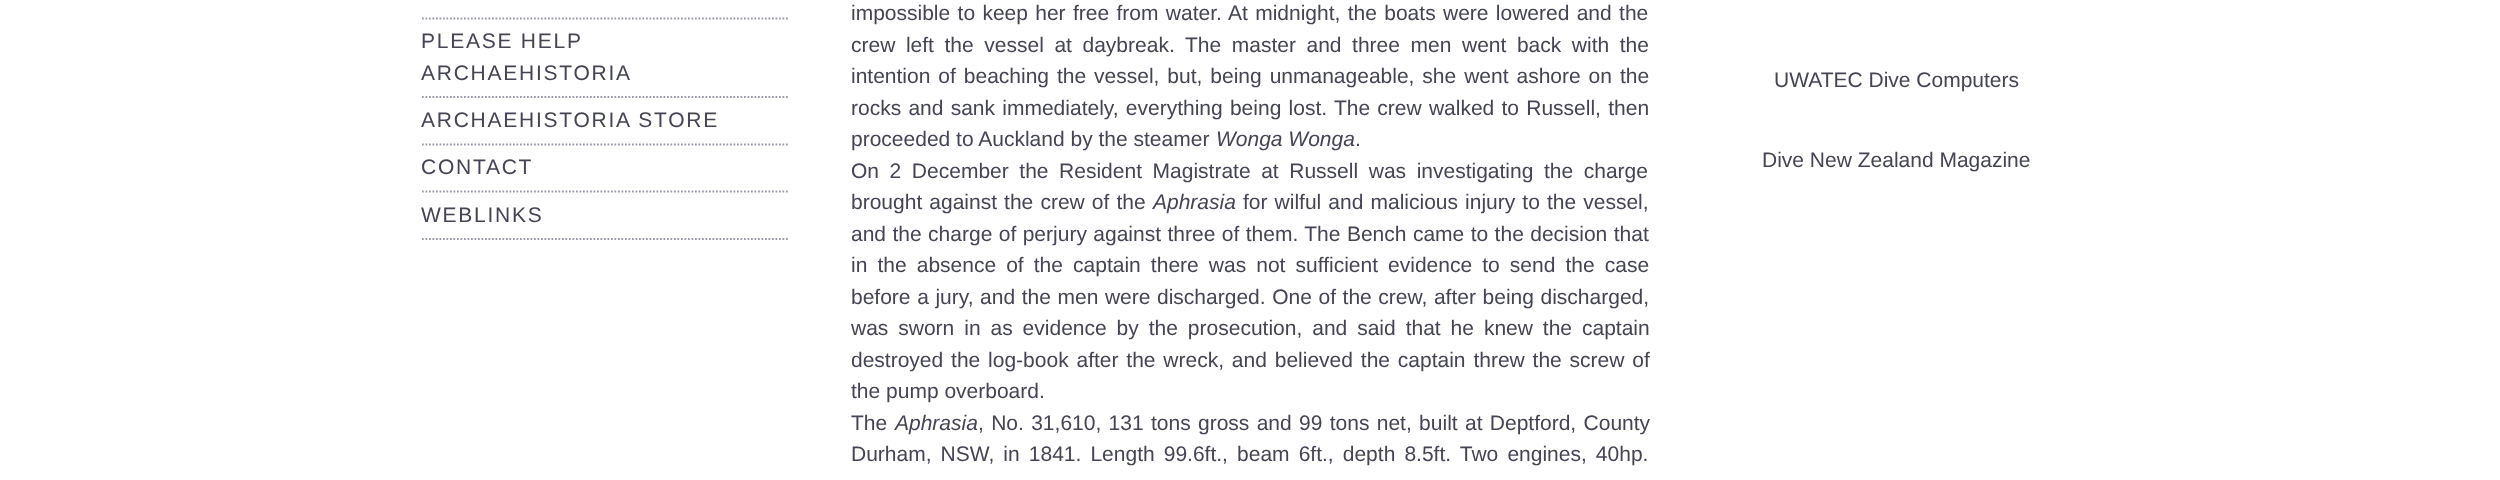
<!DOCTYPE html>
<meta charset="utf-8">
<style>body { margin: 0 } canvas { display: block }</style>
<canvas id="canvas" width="2500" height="480"></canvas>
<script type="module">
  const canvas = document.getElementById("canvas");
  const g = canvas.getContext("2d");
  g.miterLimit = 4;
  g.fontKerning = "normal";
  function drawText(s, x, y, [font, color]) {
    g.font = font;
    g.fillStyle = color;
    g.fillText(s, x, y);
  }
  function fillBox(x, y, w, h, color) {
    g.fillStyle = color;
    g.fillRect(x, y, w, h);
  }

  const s1 = ["21px Liberation Sans", "#444455"];
  const s2 = ["italic 21px Liberation Sans", "#444455"];

  fillBox(0, 0, 2500, 480, "#FFFFFF");
  g.beginPath();
  g.moveTo(422, 18.5);
  g.lineTo(789, 18.5);
  g.strokeStyle = "#9999AA";
  g.lineWidth = 1.8;
  g.setLineDash([1.75, 1.75]);
  g.stroke();
  g.beginPath();
  g.moveTo(422, 97);
  g.lineTo(789, 97);
  g.stroke();
  g.letterSpacing = "1.75px";
  drawText("PLEASE HELP", 421, 48, s1);
  drawText("ARCHAEHISTORIA", 421, 80, s1);
  g.beginPath();
  g.moveTo(422, 144.5);
  g.lineTo(789, 144.5);
  g.stroke();
  drawText("ARCHAEHISTORIA STORE", 421, 127, s1);
  g.beginPath();
  g.moveTo(422, 191.5);
  g.lineTo(789, 191.5);
  g.stroke();
  drawText("CONTACT", 421, 174, s1);
  g.beginPath();
  g.moveTo(422, 239);
  g.lineTo(789, 239);
  g.stroke();
  drawText("WEBLINKS", 421, 222, s1);
  g.letterSpacing = "0px";
  g.wordSpacing = "1.5px";
  drawText("impossible to keep her free from water. At midnight, the boats were lowered and the", 851, 20, s1);
  g.wordSpacing = "4.75px";
  drawText("crew left the vessel at daybreak. The master and three men went back with the", 851, 52, s1);
  g.wordSpacing = "2.1px";
  drawText("intention of beaching the vessel, but, being unmanageable, she went ashore on the", 851, 83, s1);
  g.wordSpacing = "1.4px";
  drawText("rocks and sank immediately, everything being lost. The crew walked to Russell, then", 851, 115, s1);
  g.wordSpacing = "0px";
  drawText("proceeded to Auckland by the steamer", 851, 146, s1);
  drawText("Wonga Wonga", 1216, 146, s2);
  drawText(".", 1355, 146, s1);
  g.wordSpacing = "4.75px";
  drawText("On 2 December the Resident Magistrate at Russell was investigating the charge", 851, 178, s1);
  g.wordSpacing = "1.25px";
  drawText("brought against the crew of the", 851, 209, s1);
  g.wordSpacing = "0px";
  drawText("Aphrasia", 1153, 209, s2);
  g.wordSpacing = "1.25px";
  drawText("for wilful and malicious injury to the vessel,", 1243, 209, s1);
  g.wordSpacing = "0.6px";
  drawText("and the charge of perjury against three of them. The Bench came to the decision that", 851, 241, s1);
  g.wordSpacing = "4.25px";
  drawText("in the absence of the captain there was not sufficient evidence to send the case", 851, 272, s1);
  g.wordSpacing = "0.75px";
  drawText("before a jury, and the men were discharged. One of the crew, after being discharged,", 851, 304, s1);
  g.wordSpacing = "4.1px";
  drawText("was sworn in as evidence by the prosecution, and said that he knew the captain", 851, 335, s1);
  g.wordSpacing = "2px";
  drawText("destroyed the log-book after the wreck, and believed the captain threw the screw of", 851, 367, s1);
  g.wordSpacing = "0px";
  drawText("the pump overboard.", 851, 398, s1);
  drawText("The", 851, 430, s1);
  drawText("Aphrasia", 895, 430, s2);
  g.wordSpacing = "1.5px";
  drawText(", No. 31,610, 131 tons gross and 99 tons net, built at Deptford, County", 978, 430, s1);
  g.wordSpacing = "3.25px";
  drawText("Durham, NSW, in 1841. Length 99.6ft., beam 6ft., depth 8.5ft. Two engines, 40hp.", 851, 461, s1);
  g.wordSpacing = "0px";
  drawText("UWATEC Dive Computers", 1774, 87, s1);
  drawText("Dive New Zealand Magazine", 1762, 167, s1);
</script>
